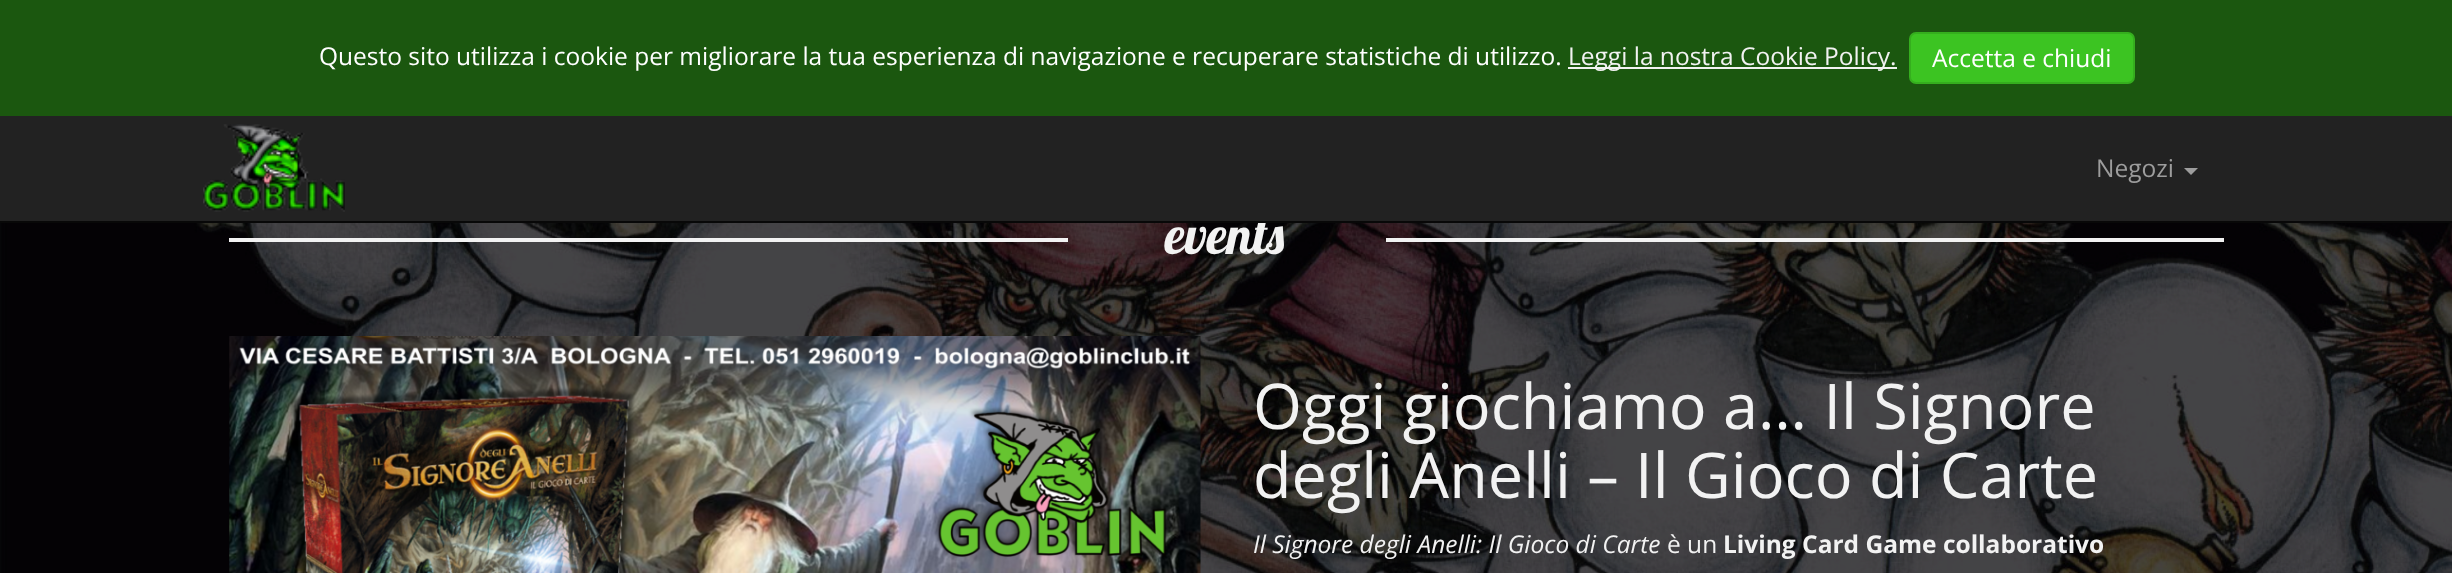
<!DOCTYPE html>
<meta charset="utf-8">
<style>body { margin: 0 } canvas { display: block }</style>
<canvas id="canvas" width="2452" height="573"></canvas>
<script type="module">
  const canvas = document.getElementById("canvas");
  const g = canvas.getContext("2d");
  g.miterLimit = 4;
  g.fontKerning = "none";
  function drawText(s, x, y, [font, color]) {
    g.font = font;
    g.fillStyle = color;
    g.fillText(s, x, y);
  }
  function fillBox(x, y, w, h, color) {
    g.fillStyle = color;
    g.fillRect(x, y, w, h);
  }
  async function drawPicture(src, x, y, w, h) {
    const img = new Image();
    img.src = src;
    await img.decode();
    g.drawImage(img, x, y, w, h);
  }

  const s1 = ["52.5px Lobster", "#F2F2F2"];
  const s2 = ["24.5px Open Sans", "#FFFFFF"];
  const s3 = ["24.5px Open Sans", "#F2F2F2"];
  const s4 = ["24.5px Open Sans", "#9D9D9D"];
  const s5 = ["63px Open Sans", "#F2F2F2"];
  const s6 = ["italic 24.5px Open Sans", "#F2F2F2"];
  const s7 = ["bold 24.5px Open Sans", "#F2F2F2"];

  fillBox(0, 0, 2452, 573, "#FFFFFF");
  await drawPicture("pic2.png", 0, 223, 2452, 350);
  drawText("events", 1165, 254, s1);
  fillBox(0, 116, 2452, 105, "#222222");
  fillBox(0, 221, 2452, 2, "#080808");
  fillBox(0, 0, 2452, 116, "#1B570F");
  drawText("Questo sito utilizza i cookie per migliorare la tua esperienza di navigazione e recuperare statistiche di utilizzo.", 319, 65, s2);
  fillBox(1568, 67, 329, 2, "#F2F2F2");
  drawText("Leggi la nostra Cookie Policy.", 1568, 65, s3);
  g.fillStyle = "#3CC422";
  g.beginPath();
  g.roundRect(1910, 33, 224, 50, 6);
  g.fill();
  g.strokeStyle = "#35AE1E";
  g.lineWidth = 2;
  g.stroke();
  drawText("Accetta e chiudi", 1932, 67, s2);
  await drawPicture("pic1.png", 203, 124, 142, 88);
  drawText("Negozi", 2096, 177, s4);
  g.beginPath();
  g.moveTo(2184, 168);
  g.lineTo(2198, 168);
  g.lineTo(2191, 175);
  g.closePath();
  g.fill();
  fillBox(229, 238, 839, 4, "#F2F2F2");
  fillBox(1386, 238, 838, 4, "#F2F2F2");
  await drawPicture("pic3.png", 229, 336, 972, 237);
  drawText("Oggi giochiamo a… Il Signore", 1253, 429, s5);
  drawText("degli Anelli – Il Gioco di Carte", 1253, 498, s5);
  drawText("Il Signore degli Anelli: Il Gioco di Carte", 1253, 553, s6);
  drawText("è un", 1667, 553, s3);
  drawText("Living Card Game collaborativo", 1723, 553, s7);
</script>
